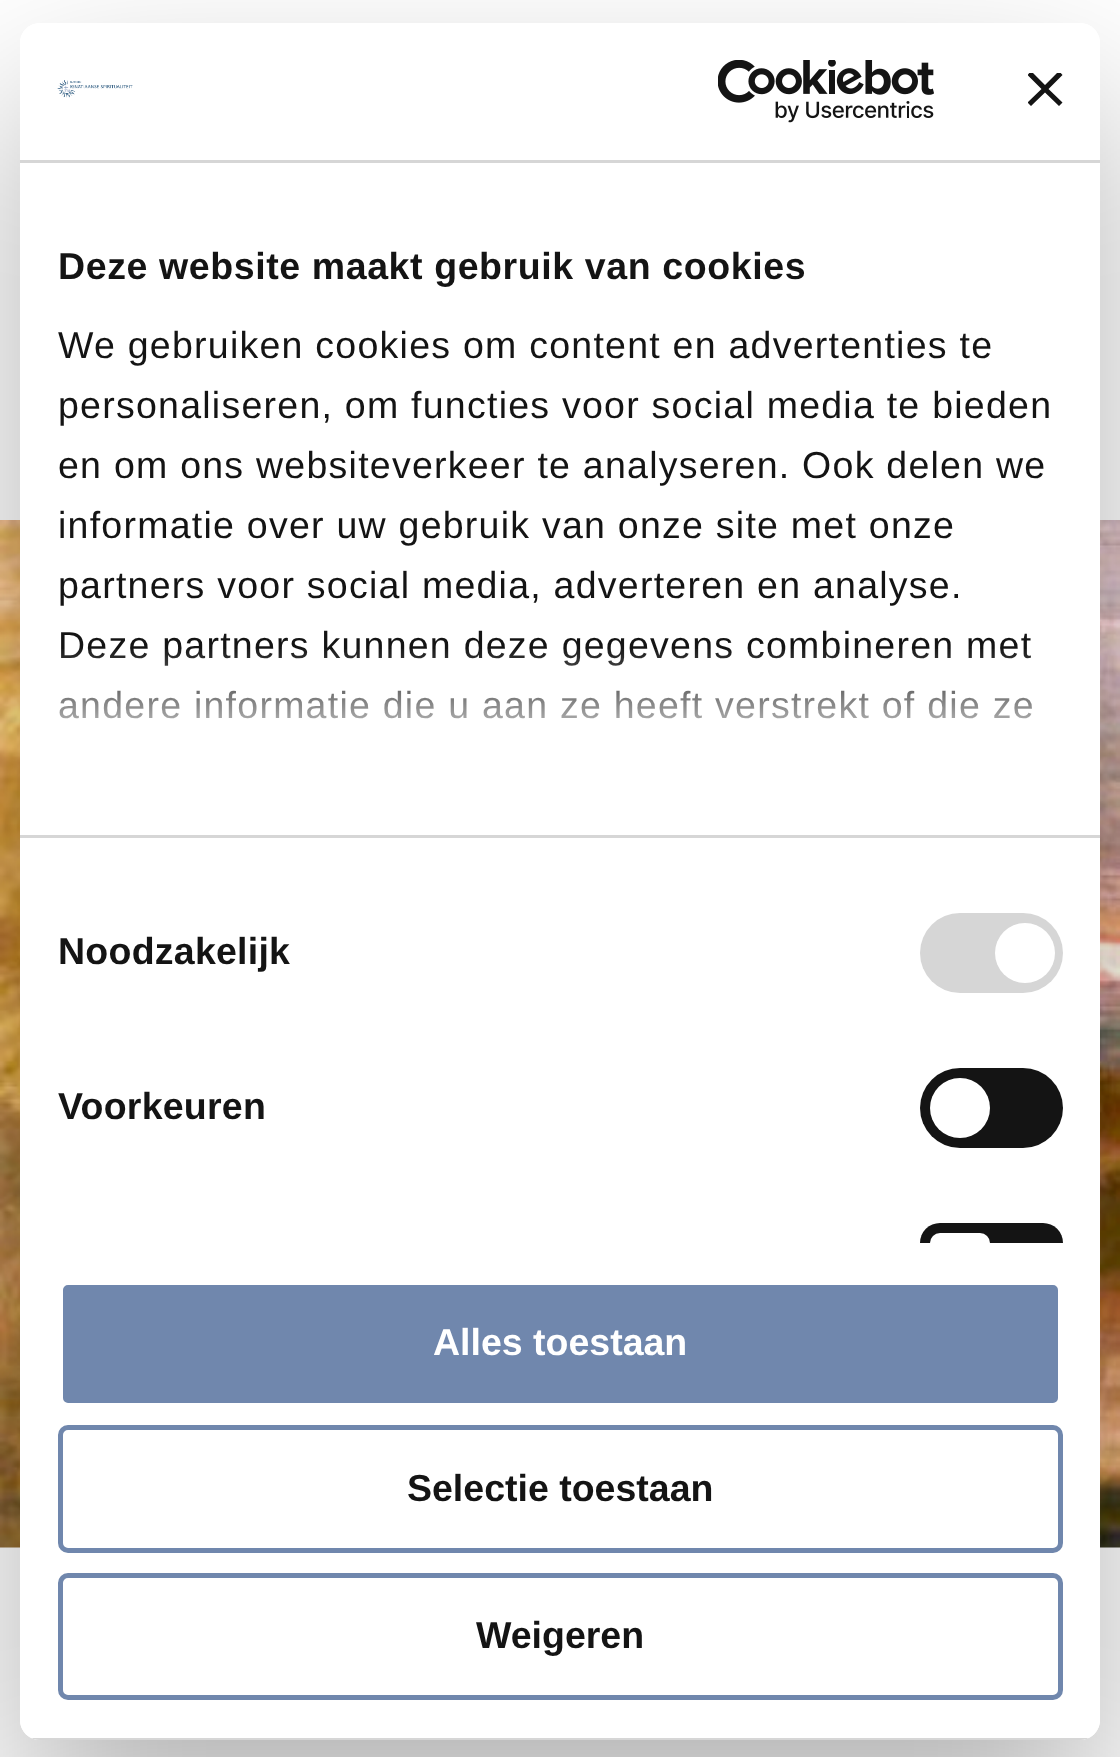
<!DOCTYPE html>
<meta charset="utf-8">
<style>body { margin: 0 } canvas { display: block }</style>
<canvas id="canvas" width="1120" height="1757"></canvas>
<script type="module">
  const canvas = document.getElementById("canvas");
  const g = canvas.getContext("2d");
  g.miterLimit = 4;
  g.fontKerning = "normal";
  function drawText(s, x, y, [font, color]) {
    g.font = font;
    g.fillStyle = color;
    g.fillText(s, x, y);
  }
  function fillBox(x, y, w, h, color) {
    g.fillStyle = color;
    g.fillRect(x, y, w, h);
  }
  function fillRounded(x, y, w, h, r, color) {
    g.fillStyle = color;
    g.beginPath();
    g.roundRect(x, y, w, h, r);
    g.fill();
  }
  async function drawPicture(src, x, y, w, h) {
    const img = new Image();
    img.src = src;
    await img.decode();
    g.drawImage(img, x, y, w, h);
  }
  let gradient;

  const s1 = ["bold 37.5px Liberation Sans", "#141414"];
  const s2 = ["37.5px Liberation Sans", "#141414"];
  const s3 = ["bold 37.5px Liberation Sans", "#FFFFFF"];

  fillBox(0, 0, 1120, 1757, "#FFFFFF");
  await drawPicture("pic3.png", 0, 520, 1120, 1028);
  g.save();
  g.beginPath();
  g.moveTo(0, 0);
  g.lineTo(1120, 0);
  g.lineTo(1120, 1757);
  g.lineTo(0, 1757);
  g.closePath();
  g.moveTo(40, 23);
  g.lineTo(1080, 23);
  g.bezierCurveTo(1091, 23, 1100, 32, 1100, 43);
  g.lineTo(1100, 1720);
  g.bezierCurveTo(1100, 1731, 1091, 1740, 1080, 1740);
  g.lineTo(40, 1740);
  g.bezierCurveTo(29, 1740, 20, 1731, 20, 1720);
  g.lineTo(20, 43);
  g.bezierCurveTo(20, 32, 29, 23, 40, 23);
  g.closePath();
  g.clip("evenodd");
  g.fillStyle = "rgba(0, 0, 0, 0.3)";
  g.filter = "blur(85px)";
  g.beginPath();
  g.roundRect(20, 103, 1080, 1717, 20);
  g.fill();
  g.filter = "none";
  g.restore();
  fillRounded(20, 23, 1080, 1717, 20, "#FFFFFF");
  fillBox(20, 160, 1080, 3, "#D6D6D6");
  await drawPicture("pic1.png", 57, 80, 76, 18);
  await drawPicture("pic2.png", 718, 60, 216, 63);
  g.save();
  g.beginPath();
  g.rect(1028, 73, 35, 35);
  g.clip();
  g.fillStyle = "#141414";
  g.beginPath();
  g.moveTo(1062.5, 75);
  g.lineTo(1059, 71);
  g.lineTo(1045, 85);
  g.lineTo(1031, 71);
  g.lineTo(1027.5, 75);
  g.lineTo(1041.5, 89);
  g.lineTo(1027.5, 102.5);
  g.lineTo(1031, 106);
  g.lineTo(1045, 92.5);
  g.lineTo(1059, 106);
  g.lineTo(1062.5, 102.5);
  g.lineTo(1048.5, 89);
  g.closePath();
  g.fill();
  g.restore();
  fillBox(20, 835, 1080, 3, "#D6D6D6");
  g.letterSpacing = "0.6px";
  drawText("Deze website maakt gebruik van cookies", 58, 279, s1);
  g.letterSpacing = "1.25px";
  drawText("We gebruiken cookies om content en advertenties te", 58, 358, s2);
  drawText("personaliseren, om functies voor social media te bieden", 58, 418, s2);
  drawText("en om ons websiteverkeer te analyseren. Ook delen we", 58, 478, s2);
  drawText("informatie over uw gebruik van onze site met onze", 58, 538, s2);
  drawText("partners voor social media, adverteren en analyse.", 58, 598, s2);
  drawText("Deze partners kunnen deze gegevens combineren met", 58, 658, s2);
  drawText("andere informatie die u aan ze heeft verstrekt of die ze", 58, 718, s2);
  gradient = g.createLinearGradient(544, 834, 544, 646);
  gradient.addColorStop(0, "#FFFFFF");
  gradient.addColorStop(0.5, "rgba(255, 255, 255, 0.8)");
  gradient.addColorStop(1, "rgba(255, 255, 255, 0)");
  g.fillStyle = gradient;
  g.fillRect(59, 649, 973, 70);
  g.letterSpacing = "0.25px";
  drawText("Noodzakelijk", 58, 964, s1);
  fillRounded(920, 913, 143, 80, 40, "#D6D6D6");
  g.fillStyle = "#FFFFFF";
  g.beginPath();
  g.arc(1025, 953, 30, 0, Math.PI * 2);
  g.fill();
  drawText("Voorkeuren", 58, 1119, s1);
  fillRounded(920, 1068, 143, 80, 40, "#141414");
  g.fillStyle = "#FFFFFF";
  g.beginPath();
  g.arc(960, 1108, 30, 0, Math.PI * 2);
  g.fill();
  g.fillStyle = "#141414";
  g.beginPath();
  g.roundRect(920, 1223, 143, 20, [40, 40, 0, 0]);
  g.fill();
  g.fillStyle = "#FFFFFF";
  g.beginPath();
  g.roundRect(930, 1233, 60, 10, [30, 30, 0, 0]);
  g.fill();
  g.save();
  g.beginPath();
  g.roundRect(20, 23, 1080, 1717, 20);
  g.clip();
  fillBox(31, 1738, 1058, 2, "#D6D6D6");
  g.restore();
  g.fillStyle = "#7087AD";
  g.beginPath();
  g.roundRect(60.5, 1282.5, 1000, 123, 7.5);
  g.fill();
  g.strokeStyle = "#FFFFFF";
  g.lineWidth = 5;
  g.stroke();
  g.letterSpacing = "0px";
  drawText("Alles toestaan", 433, 1355, s3);
  g.beginPath();
  g.roundRect(60.5, 1427.5, 1000, 123, 7.5);
  g.strokeStyle = "#7087AD";
  g.stroke();
  drawText("Selectie toestaan", 407, 1501, s1);
  g.beginPath();
  g.roundRect(60.5, 1575.5, 1000, 122, 7.5);
  g.stroke();
  drawText("Weigeren", 476, 1648, s1);
</script>
